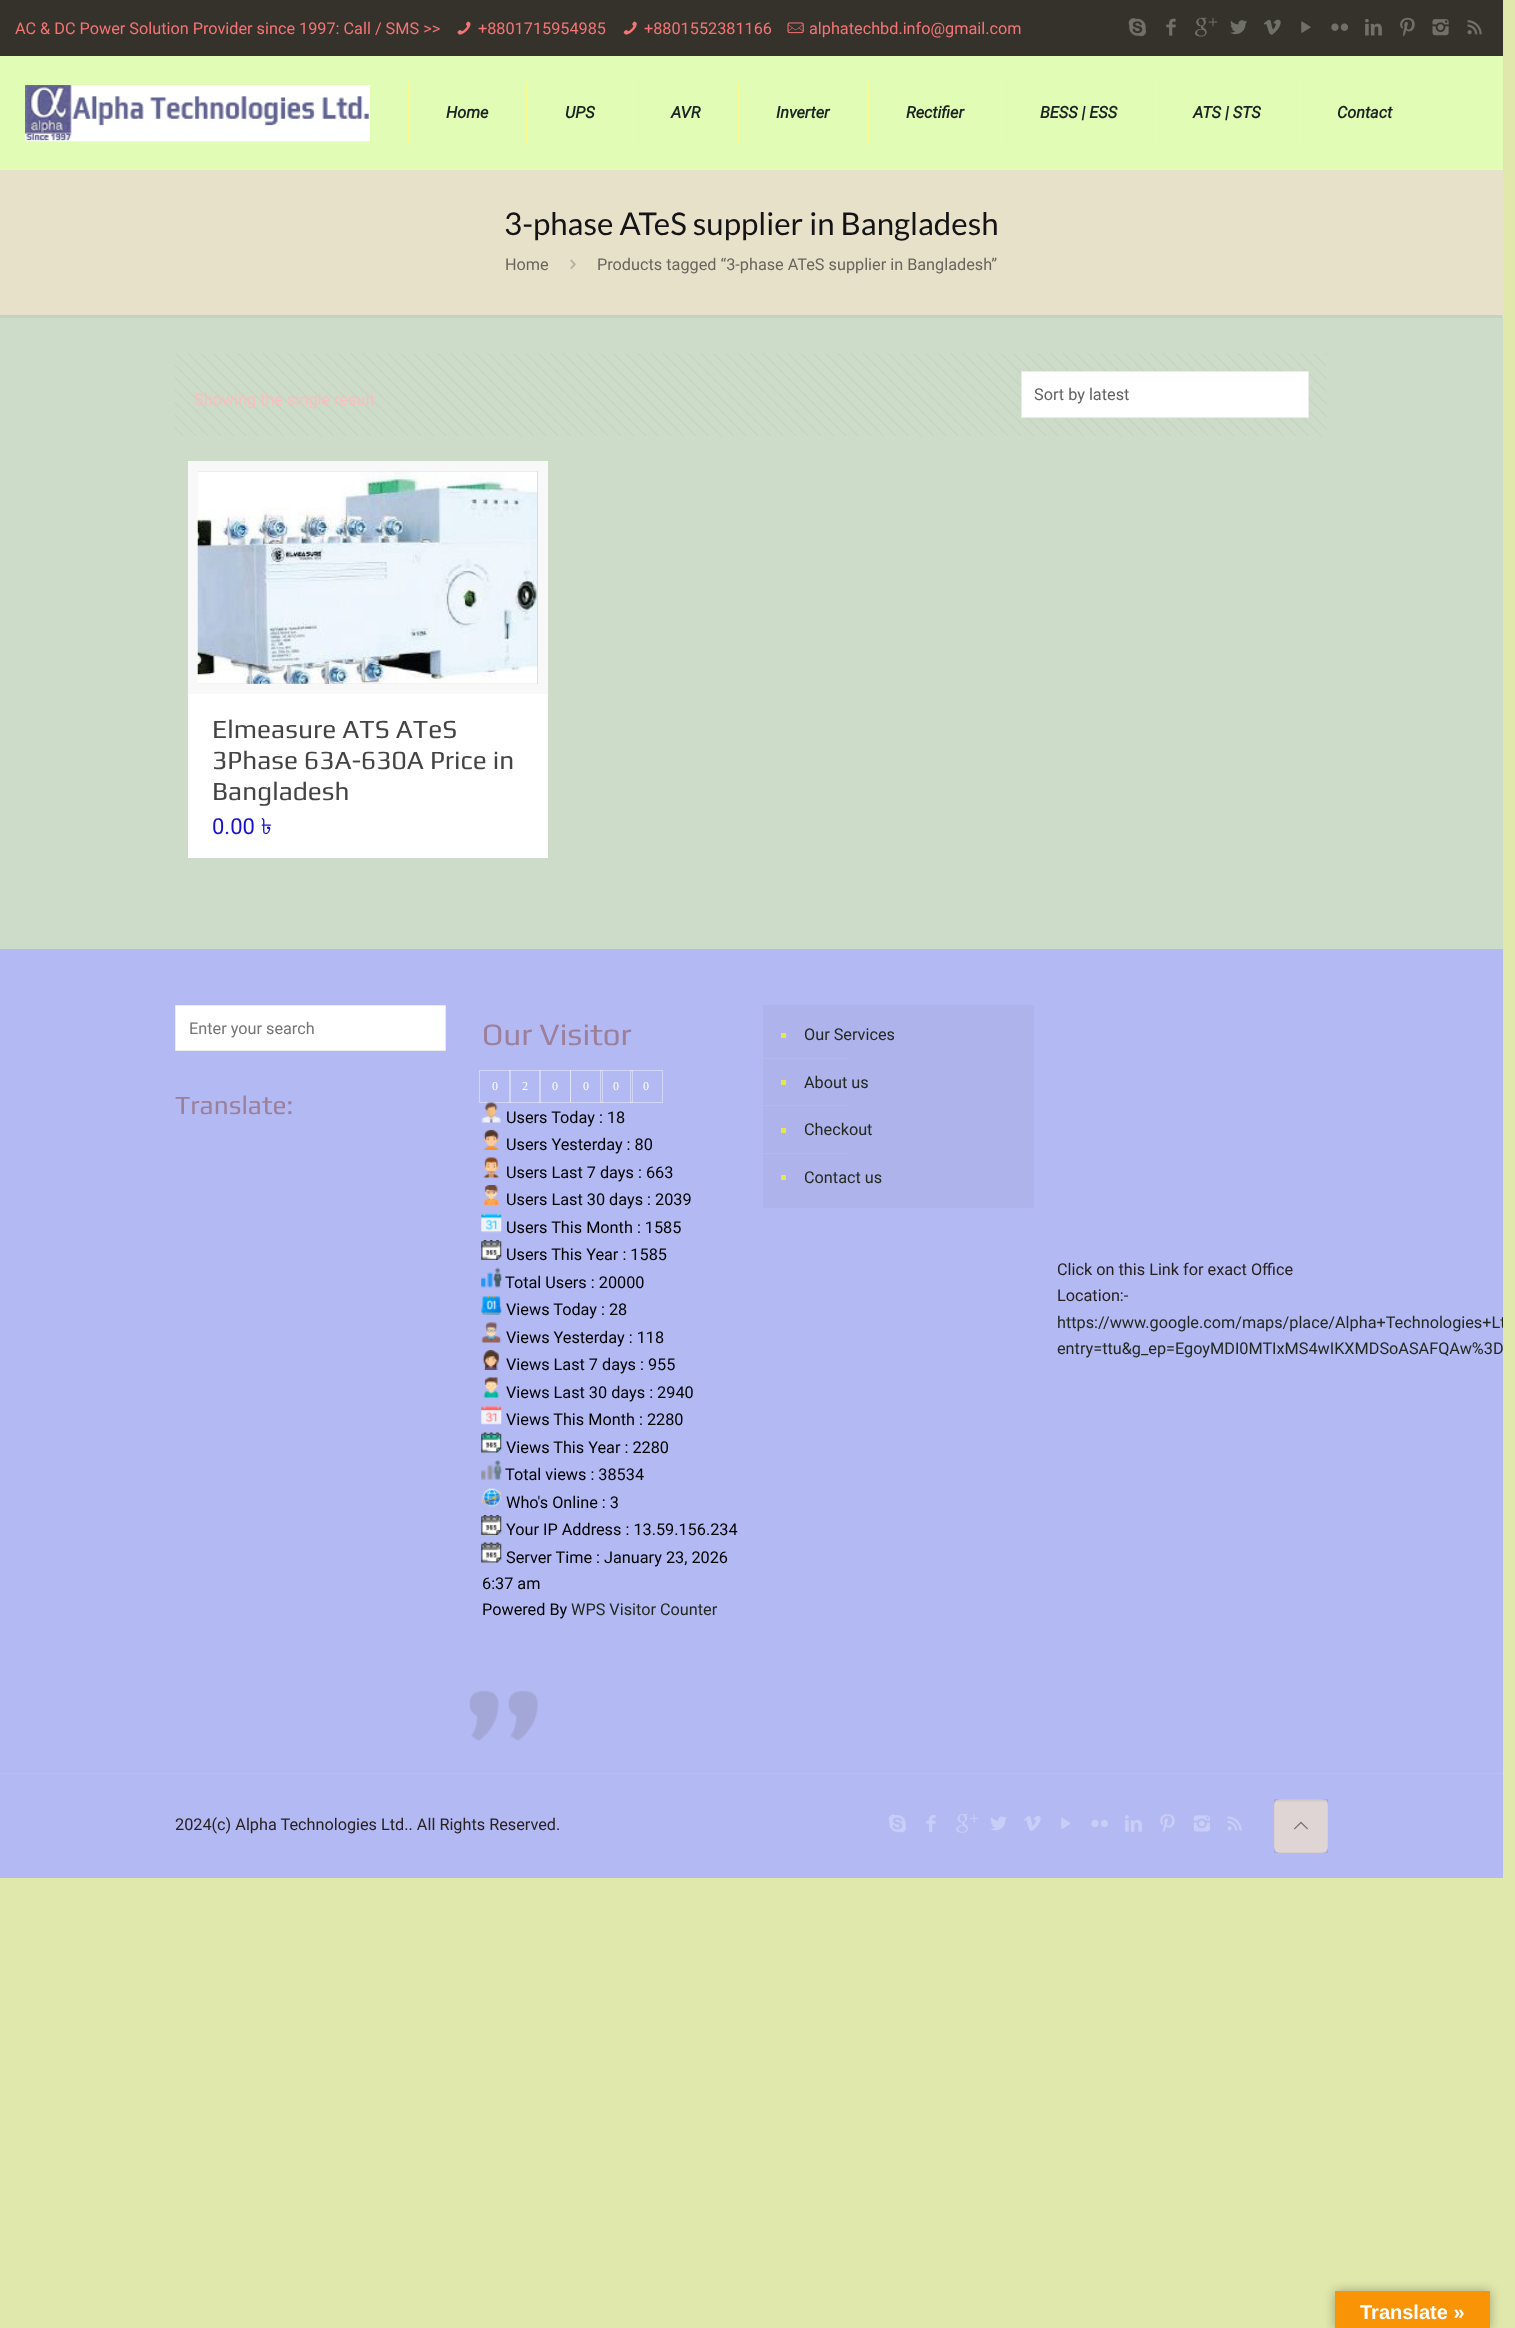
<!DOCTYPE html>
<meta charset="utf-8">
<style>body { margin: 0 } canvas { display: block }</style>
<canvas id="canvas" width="1515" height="2328"></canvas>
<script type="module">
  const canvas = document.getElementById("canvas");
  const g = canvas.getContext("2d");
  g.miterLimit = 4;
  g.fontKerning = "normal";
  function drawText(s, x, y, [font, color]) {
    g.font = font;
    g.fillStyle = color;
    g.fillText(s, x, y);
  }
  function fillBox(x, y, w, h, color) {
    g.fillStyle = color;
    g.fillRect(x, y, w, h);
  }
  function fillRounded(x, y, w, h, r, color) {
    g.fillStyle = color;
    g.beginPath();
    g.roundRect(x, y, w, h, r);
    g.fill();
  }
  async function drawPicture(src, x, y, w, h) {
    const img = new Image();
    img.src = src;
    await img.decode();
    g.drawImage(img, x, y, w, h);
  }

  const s1 = ["16.25px Roboto", "#F57474"];
  const s2 = ["italic bold 16.25px Roboto", "#1D2323"];
  const s3 = ["31.25px Lato", "#141316"];
  const s4 = ["16.25px Roboto", "#69655E"];
  const s5 = ["16.25px Roboto", "#FCBDBD"];
  const s6 = ["16.25px Roboto", "#626262"];
  const s7 = ["26.25px Play", "#444444"];
  const s8 = ["22px Roboto", "#1811CD"];
  const s9 = ["22px Lohit Bengali", "#1811CD"];
  const s10 = ["16.25px Roboto", "#757575"];
  const s11 = ["26.25px Play", "#9C7F99"];
  const s12 = ["31.25px Play", "#9C7F99"];
  const s13 = ["12px Liberation Serif", "#FFFFFF"];
  const s14 = ["16.25px Roboto", "#000000"];
  const s15 = ["16.25px Roboto", "#232921"];
  const s16 = ["16.25px Roboto", "#292121"];
  const s17 = ["bold 20px Liberation Sans", "#FFFFFF"];

  fillBox(0, 0, 1515, 2328, "#E0E8AC");
  fillBox(0, 0, 1503, 56, "#34322B");
  drawText("AC & DC Power Solution Provider since 1997: Call / SMS >>", 15, 34, s1);
  await drawPicture("pic1.png", 457, 21, 14, 14);
  drawText("+8801715954985", 478, 34, s1);
  await drawPicture("pic2.png", 623, 21, 14, 14);
  drawText("+8801552381166", 644, 34, s1);
  await drawPicture("pic3.png", 787, 22, 17, 12);
  drawText("alphatechbd.info@gmail.com", 809, 34, s1);
  await drawPicture("pic4.png", 1128, 18, 18, 19);
  await drawPicture("pic5.png", 1166, 18, 10, 18);
  await drawPicture("pic6.png", 1195, 17, 23, 20);
  await drawPicture("pic7.png", 1230, 20, 17, 15);
  await drawPicture("pic8.png", 1263, 19, 18, 16);
  await drawPicture("pic9.png", 1301, 21, 10, 12);
  await drawPicture("pic10.png", 1331, 23, 17, 8);
  await drawPicture("pic11.png", 1365, 19, 17, 17);
  await drawPicture("pic12.png", 1400, 17, 15, 20);
  await drawPicture("pic13.png", 1432, 19, 17, 17);
  await drawPicture("pic14.png", 1467, 20, 15, 15);
  fillBox(0, 56, 1503, 113, "#E1FDB5");
  fillBox(0, 169, 1503, 1, "#FAFA90");
  await drawPicture("pic15.png", 25, 85, 345, 57);
  fillBox(526, 81, 1, 63, "#FAFA90");
  fillBox(408, 81, 1, 63, "#FAFA90");
  drawText("Home", 446, 118, s2);
  fillBox(633, 81, 1, 63, "#FAFA90");
  drawText("UPS", 565, 118, s2);
  fillBox(738, 81, 1, 63, "#FAFA90");
  drawText("AVR", 671, 118, s2);
  fillBox(868, 81, 1, 63, "#FAFA90");
  drawText("Inverter", 776, 118, s2);
  fillBox(1001, 81, 1, 63, "#FAFA90");
  drawText("Rectifier", 906, 118, s2);
  fillBox(1155, 81, 1, 63, "#FAFA90");
  drawText("BESS | ESS", 1040, 118, s2);
  fillBox(1299, 81, 1, 63, "#FAFA90");
  drawText("ATS | STS", 1193, 118, s2);
  drawText("Contact", 1337, 118, s2);
  fillBox(0, 170, 1503, 145, "rgba(246, 214, 247, 0.4)");
  drawText("3-phase ATeS supplier in Bangladesh", 504, 235, s3);
  drawText("Home", 505, 270, s4);
  await drawPicture("pic16.png", 570, 259, 6, 10);
  drawText("Products tagged “3-phase ATeS supplier in Bangladesh”", 597, 270, s4);
  fillBox(0, 315, 1503, 634, "#CCDCC9");
  fillBox(0, 315, 1502, 3, "#C4D3C1");
  await drawPicture("pic17.png", 175, 353, 1152, 83);
  drawText("Showing the single result", 194, 405, s5);
  g.fillStyle = "#FFFFFF";
  g.beginPath();
  g.rect(1021.5, 371.5, 287, 46);
  g.fill();
  g.strokeStyle = "#EBEBEB";
  g.stroke();
  drawText("Sort by latest", 1034, 400, s6);
  g.strokeStyle = "#F8F8F8";
  g.lineWidth = 10;
  g.strokeRect(193, 466, 350, 223);
  await drawPicture("pic18.png", 197, 471, 341, 213);
  fillBox(188, 694, 360, 164, "#FFFFFF");
  drawText("Elmeasure ATS ATeS", 212, 738, s7);
  drawText("3Phase 63A-630A Price in", 212, 769, s7);
  drawText("Bangladesh", 212, 800, s7);
  drawText("0.00", 212, 834, s8);
  drawText("৳", 261, 834, s9);
  fillBox(0, 949, 1503, 929, "#B3B9F2");
  g.fillStyle = "#FFFFFF";
  g.beginPath();
  g.rect(175.5, 1005.5, 270, 45);
  g.fill();
  g.strokeStyle = "#EBEBEB";
  g.lineWidth = 1;
  g.stroke();
  drawText("Enter your search", 189, 1034, s10);
  drawText("Translate:", 175, 1114, s11);
  drawText("Our Visitor", 482, 1045, s12);
  g.strokeStyle = "#D1D5F7";
  g.strokeRect(479.5, 1070.5, 31, 32);
  drawText("0", 492, 1090, s13);
  g.strokeStyle = "rgba(255, 255, 255, 0.4)";
  g.strokeRect(509.5, 1070.5, 31, 32);
  drawText("2", 522, 1090, s13);
  g.strokeRect(539.5, 1070.5, 31, 32);
  drawText("0", 552, 1090, s13);
  g.strokeRect(570.5, 1070.5, 32, 32);
  drawText("0", 583, 1090, s13);
  g.strokeRect(600.5, 1070.5, 32, 32);
  drawText("0", 613, 1090, s13);
  g.strokeRect(630.5, 1070.5, 32, 32);
  drawText("0", 643, 1090, s13);
  await drawPicture("pic19.png", 481, 1102, 21, 21);
  drawText("Users Today : 18", 506, 1123, s14);
  await drawPicture("pic20.png", 483, 1130, 16, 20);
  drawText("Users Yesterday : 80", 506, 1150, s14);
  await drawPicture("pic21.png", 483, 1157, 16, 21);
  drawText("Users Last 7 days : 663", 506, 1178, s14);
  await drawPicture("pic22.png", 483, 1185, 16, 20);
  drawText("Users Last 30 days : 2039", 506, 1205, s14);
  await drawPicture("pic23.png", 481, 1213, 21, 20);
  drawText("Users This Month : 1585", 506, 1233, s14);
  await drawPicture("pic24.png", 481, 1240, 21, 20);
  drawText("Users This Year : 1585", 506, 1260, s14);
  await drawPicture("pic25.png", 481, 1267, 21, 21);
  drawText("Total Users : 20000", 505, 1288, s14);
  await drawPicture("pic26.png", 481, 1295, 21, 20);
  drawText("Views Today : 28", 506, 1315, s14);
  await drawPicture("pic27.png", 481, 1322, 21, 21);
  drawText("Views Yesterday : 118", 506, 1343, s14);
  await drawPicture("pic28.png", 482, 1350, 18, 20);
  drawText("Views Last 7 days : 955", 506, 1370, s14);
  await drawPicture("pic29.png", 483, 1377, 16, 21);
  drawText("Views Last 30 days : 2940", 506, 1398, s14);
  await drawPicture("pic30.png", 481, 1406, 21, 19);
  drawText("Views This Month : 2280", 506, 1425, s14);
  await drawPicture("pic31.png", 481, 1432, 21, 21);
  drawText("Views This Year : 2280", 506, 1453, s14);
  await drawPicture("pic32.png", 481, 1460, 21, 20);
  drawText("Total views : 38534", 505, 1480, s14);
  await drawPicture("pic33.png", 481, 1488, 21, 19);
  drawText("Who's Online : 3", 506, 1508, s14);
  await drawPicture("pic24.png", 481, 1515, 21, 20);
  drawText("Your IP Address : 13.59.156.234", 506, 1535, s14);
  await drawPicture("pic34.png", 481, 1542, 21, 21);
  drawText("Server Time : January 23, 2026", 506, 1563, s14);
  drawText("6:37 am", 482, 1589, s14);
  drawText("Powered By", 482, 1615, s14);
  drawText("WPS Visitor Counter", 571, 1615, s15);
  await drawPicture("pic35.png", 469, 1691, 69, 50);
  fillBox(763, 1005, 271, 203, "#AEB3EB");
  fillBox(781, 1033, 5, 5, "#E9E742");
  drawText("Our Services", 804, 1040, s15);
  fillBox(763, 1058, 87, 1, "#B4B9ED");
  fillBox(781, 1080, 5, 5, "#E9E742");
  drawText("About us", 804, 1088, s15);
  fillBox(763, 1105, 87, 1, "#B4B9ED");
  fillBox(781, 1128, 5, 5, "#E9E742");
  drawText("Checkout", 804, 1135, s15);
  fillBox(763, 1153, 87, 1, "#B4B9ED");
  fillBox(781, 1175, 5, 5, "#E9E742");
  drawText("Contact us", 804, 1183, s15);
  drawText("Click on this Link for exact Office", 1057, 1275, s16);
  drawText("Location:-", 1057, 1301, s16);
  g.save();
  g.beginPath();
  g.rect(0, 0, 1503, 1878);
  g.clip();
  drawText("https://www.google.com/maps/place/Alpha+Technologies+Lt", 1057, 1328, s15);
  g.restore();
  drawText("entry=ttu&g_ep=EgoyMDI0MTIxMS4wIKXMDSoASAFQAw%3D", 1057, 1354, s15);
  fillBox(0, 1773, 1503, 1, "#BBC0F3");
  drawText("2024(c) Alpha Technologies Ltd.. All Rights Reserved.", 175, 1830, s16);
  await drawPicture("pic36.png", 888, 1814, 18, 19);
  await drawPicture("pic37.png", 926, 1815, 10, 17);
  await drawPicture("pic38.png", 956, 1814, 23, 19);
  await drawPicture("pic39.png", 990, 1816, 17, 15);
  await drawPicture("pic40.png", 1024, 1816, 17, 15);
  await drawPicture("pic41.png", 1061, 1818, 10, 11);
  await drawPicture("pic42.png", 1091, 1819, 17, 8);
  await drawPicture("pic43.png", 1125, 1815, 17, 17);
  await drawPicture("pic44.png", 1160, 1814, 15, 19);
  await drawPicture("pic45.png", 1193, 1815, 17, 17);
  await drawPicture("pic46.png", 1227, 1816, 15, 15);
  fillRounded(1274, 1799, 54, 54, 6, "#EDE1E1");
  await drawPicture("pic47.png", 1275, 1799, 51, 3);
  g.strokeStyle = "rgba(0, 0, 0, 0.03)";
  g.strokeRect(1274.5, 1799.5, 53, 53);
  fillBox(1274, 1799, 54, 54, "rgba(0, 0, 0, 0.05)");
  await drawPicture("pic48.png", 1294, 1821, 14, 9);
  g.fillStyle = "rgba(0, 0, 0, 0.3)";
  g.filter = "blur(5.5px)";
  g.beginPath();
  g.rect(1335, 2291, 155, 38);
  g.fill();
  g.filter = "none";
  fillBox(1335, 2291, 155, 37, "#F89406");
  drawText("Translate »", 1360, 2319, s17);
</script>
